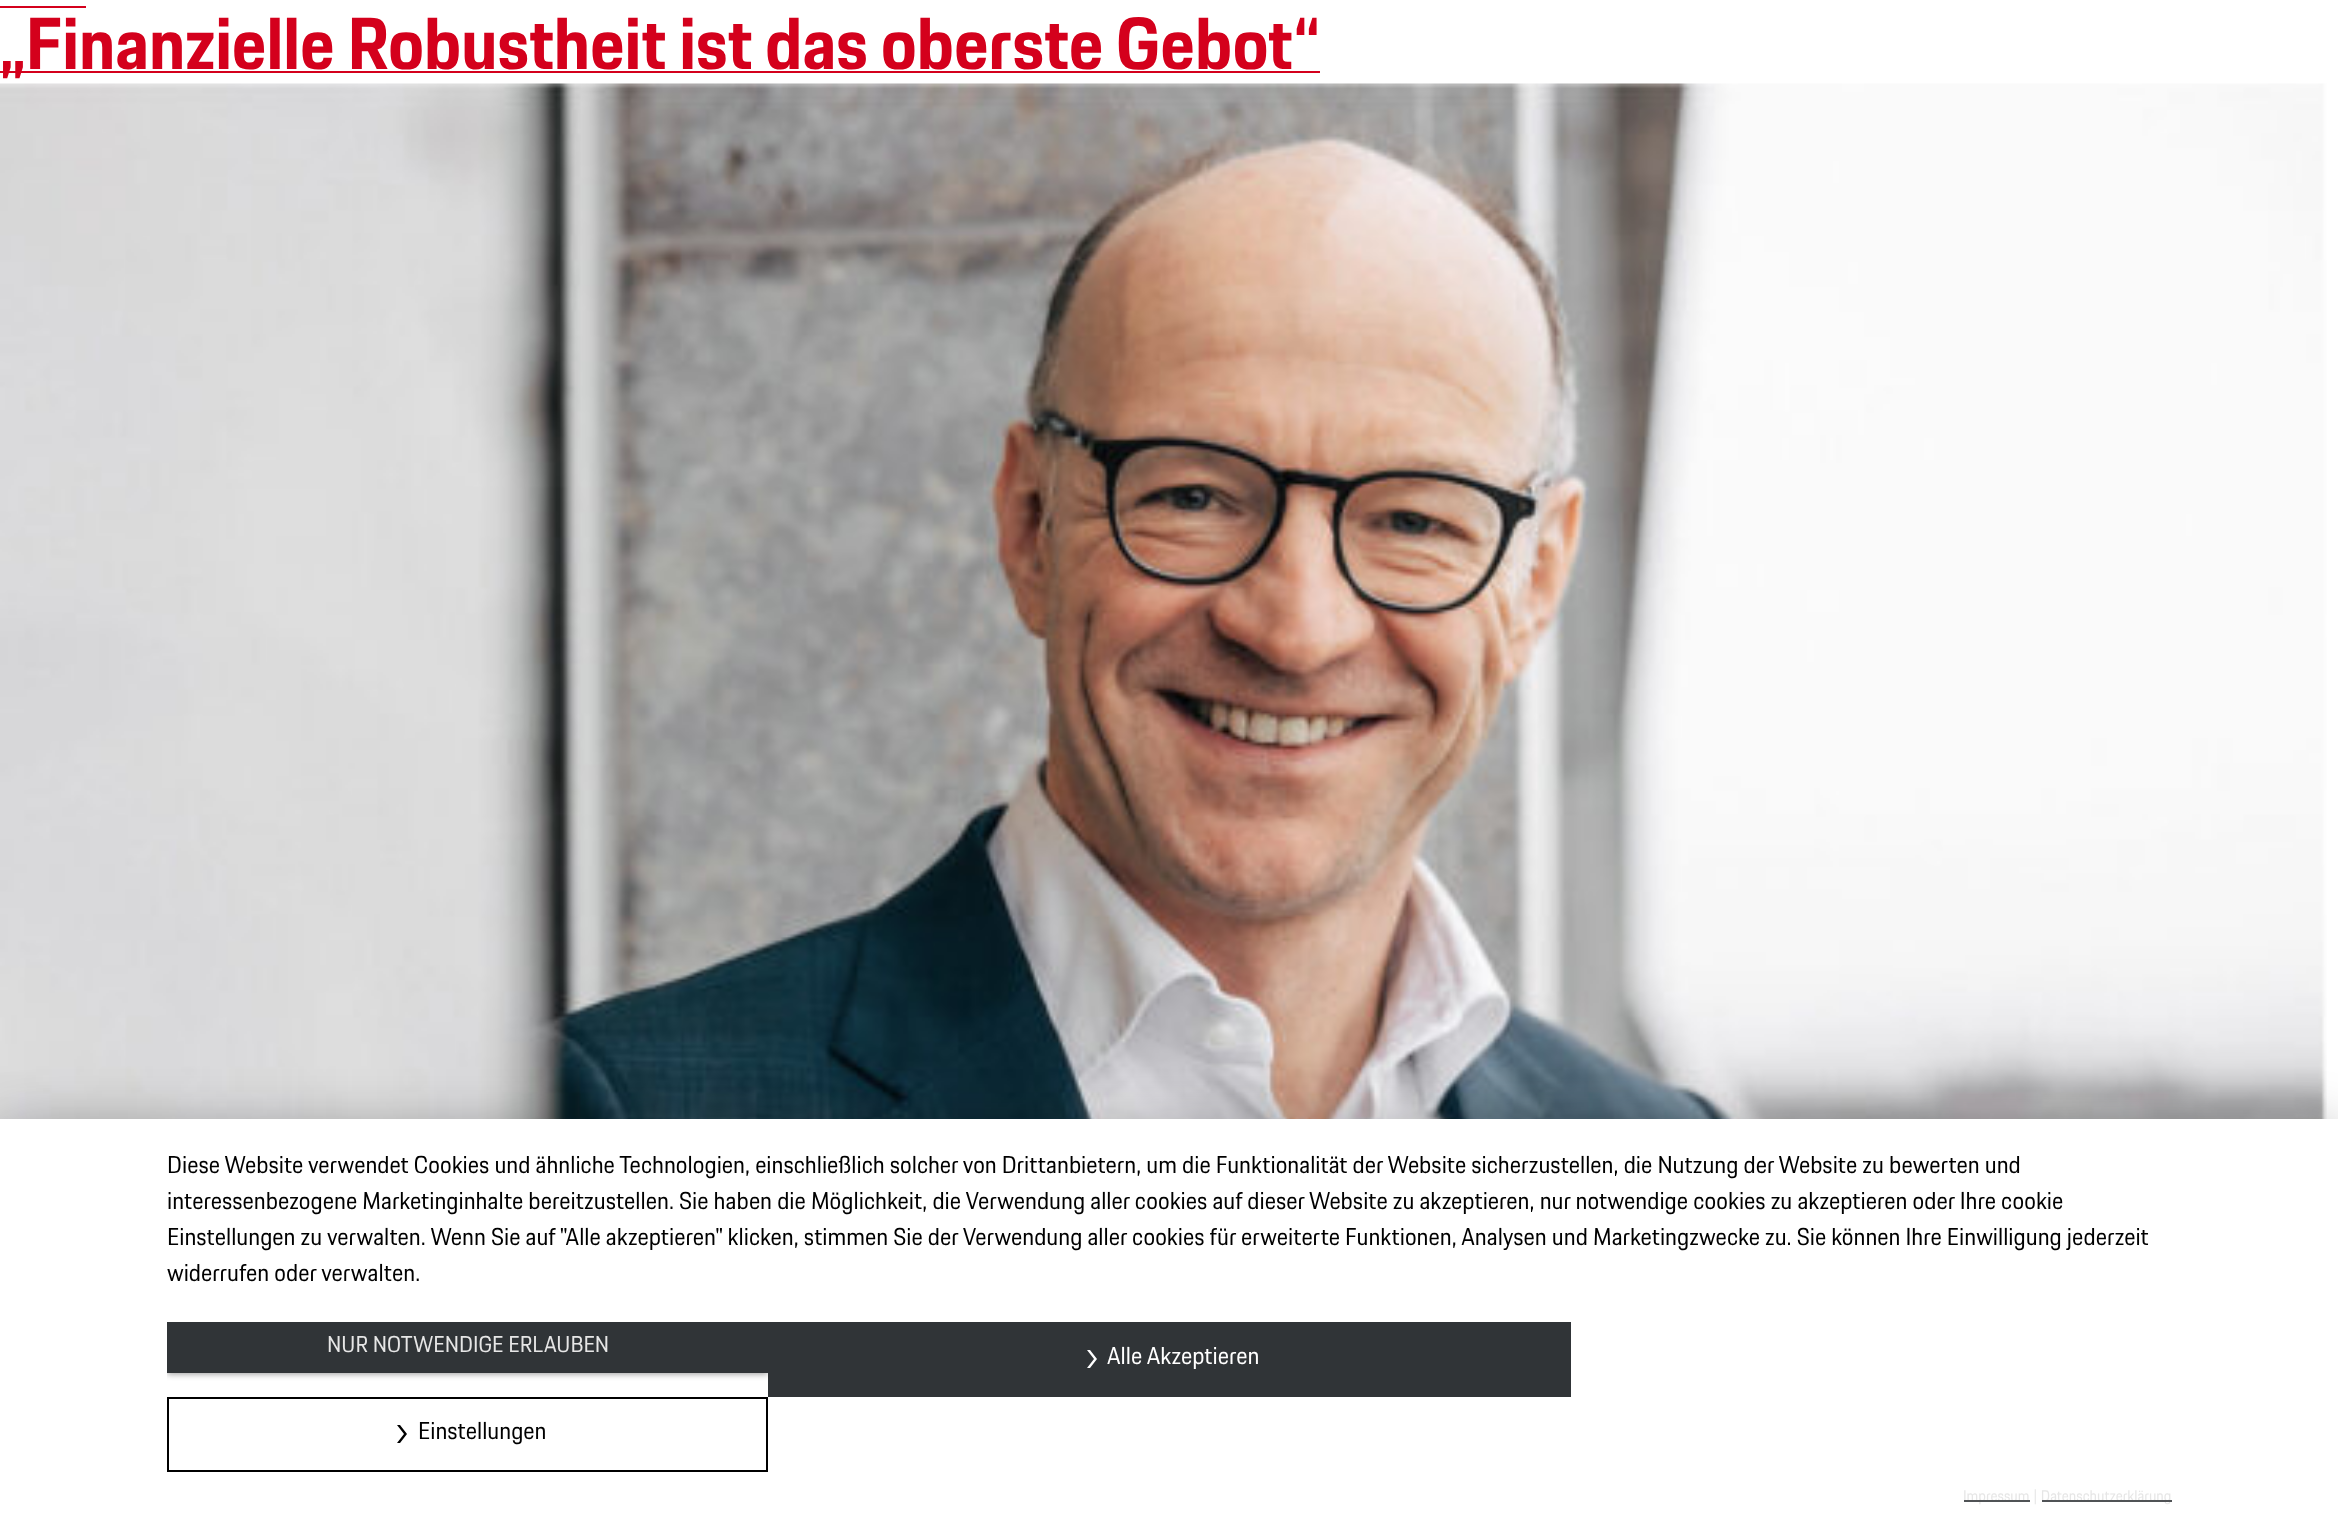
<!DOCTYPE html>
<meta charset="utf-8">
<style>body { margin: 0 } canvas { display: block }</style>
<canvas id="canvas" width="2338" height="1536"></canvas>
<script type="module">
  const canvas = document.getElementById("canvas");
  const g = canvas.getContext("2d");
  g.miterLimit = 4;
  g.fontKerning = "normal";
  function drawText(s, x, y, [font, color]) {
    g.font = font;
    g.fillStyle = color;
    g.fillText(s, x, y);
  }
  function fillBox(x, y, w, h, color) {
    g.fillStyle = color;
    g.fillRect(x, y, w, h);
  }
  async function drawPicture(src, x, y, w, h) {
    const img = new Image();
    img.src = src;
    await img.decode();
    g.drawImage(img, x, y, w, h);
  }

  const s1 = ["bold 72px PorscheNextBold", "#D4001C"];
  const s2 = ["24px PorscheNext", "#000000"];
  const s3 = ["22.5px PorscheNext", "#E6E6E6"];
  const s4 = ["24px PorscheNext", "#FFFFFF"];
  const s5 = ["15px PorscheNext", "#E6E6E6"];

  fillBox(0, 0, 2338, 1536, "#FFFFFF");
  fillBox(0, 6, 86, 2, "#D4001C");
  fillBox(0, 71, 1320, 2, "#D4001C");
  drawText("„Finanzielle Robustheit ist das oberste Gebot“", 0, 69, s1);
  await drawPicture("pic1.png", 0, 83, 2327, 1036);
  g.fillStyle = "rgba(0, 0, 0, 0.3)";
  g.filter = "blur(27px)";
  g.beginPath();
  g.rect(0, 1128, 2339, 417);
  g.fill();
  g.filter = "none";
  fillBox(0, 1119, 2338, 417, "#FFFFFF");
  drawText("Diese Website verwendet Cookies und ähnliche Technologien, einschließlich solcher von Drittanbietern, um die Funktionalität der Website sicherzustellen, die Nutzung der Website zu bewerten und", 167, 1173, s2);
  drawText("interessenbezogene Marketinginhalte bereitzustellen. Sie haben die Möglichkeit, die Verwendung aller cookies auf dieser Website zu akzeptieren, nur notwendige cookies zu akzeptieren oder Ihre cookie", 167, 1209, s2);
  drawText("Einstellungen zu verwalten. Wenn Sie auf \"Alle akzeptieren\" klicken, stimmen Sie der Verwendung aller cookies für erweiterte Funktionen, Analysen und Marketingzwecke zu. Sie können Ihre Einwilligung jederzeit", 167, 1245, s2);
  drawText("widerrufen oder verwalten.", 167, 1281, s2);
  g.save();
  g.beginPath();
  g.rect(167, 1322, 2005, 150);
  g.clip();
  g.fillStyle = "rgba(0, 0, 0, 0.4)";
  g.filter = "blur(3px)";
  g.beginPath();
  g.rect(167, 1323, 601, 51);
  g.fill();
  g.filter = "none";
  g.restore();
  fillBox(167, 1322, 601, 51, "#303437");
  drawText("NUR NOTWENDIGE ERLAUBEN", 327, 1352, s3);
  fillBox(768, 1322, 803, 75, "#303437");
  g.fillStyle = "#FFFFFF";
  g.beginPath();
  g.moveTo(1087, 1368);
  g.lineTo(1094, 1359);
  g.lineTo(1087, 1350);
  g.lineTo(1090, 1350);
  g.lineTo(1097, 1359);
  g.lineTo(1090, 1368);
  g.closePath();
  g.fill();
  drawText("Alle Akzeptieren", 1107, 1364, s4);
  g.strokeStyle = "#000000";
  g.lineWidth = 2;
  g.strokeRect(168, 1398, 599, 73);
  g.fillStyle = "#000000";
  g.beginPath();
  g.moveTo(397, 1443);
  g.lineTo(404, 1434);
  g.lineTo(397, 1425);
  g.lineTo(400, 1425);
  g.lineTo(407, 1434);
  g.lineTo(400, 1443);
  g.closePath();
  g.fill();
  drawText("Einstellungen", 418, 1439, s2);
  drawText("Impressum", 1963, 1501, s5);
  fillBox(1964, 1500, 66, 2, "#505356");
  drawText("| Datenschutzerklärung", 2033, 1501, s5);
  fillBox(2042, 1500, 130, 2, "#505356");
</script>
